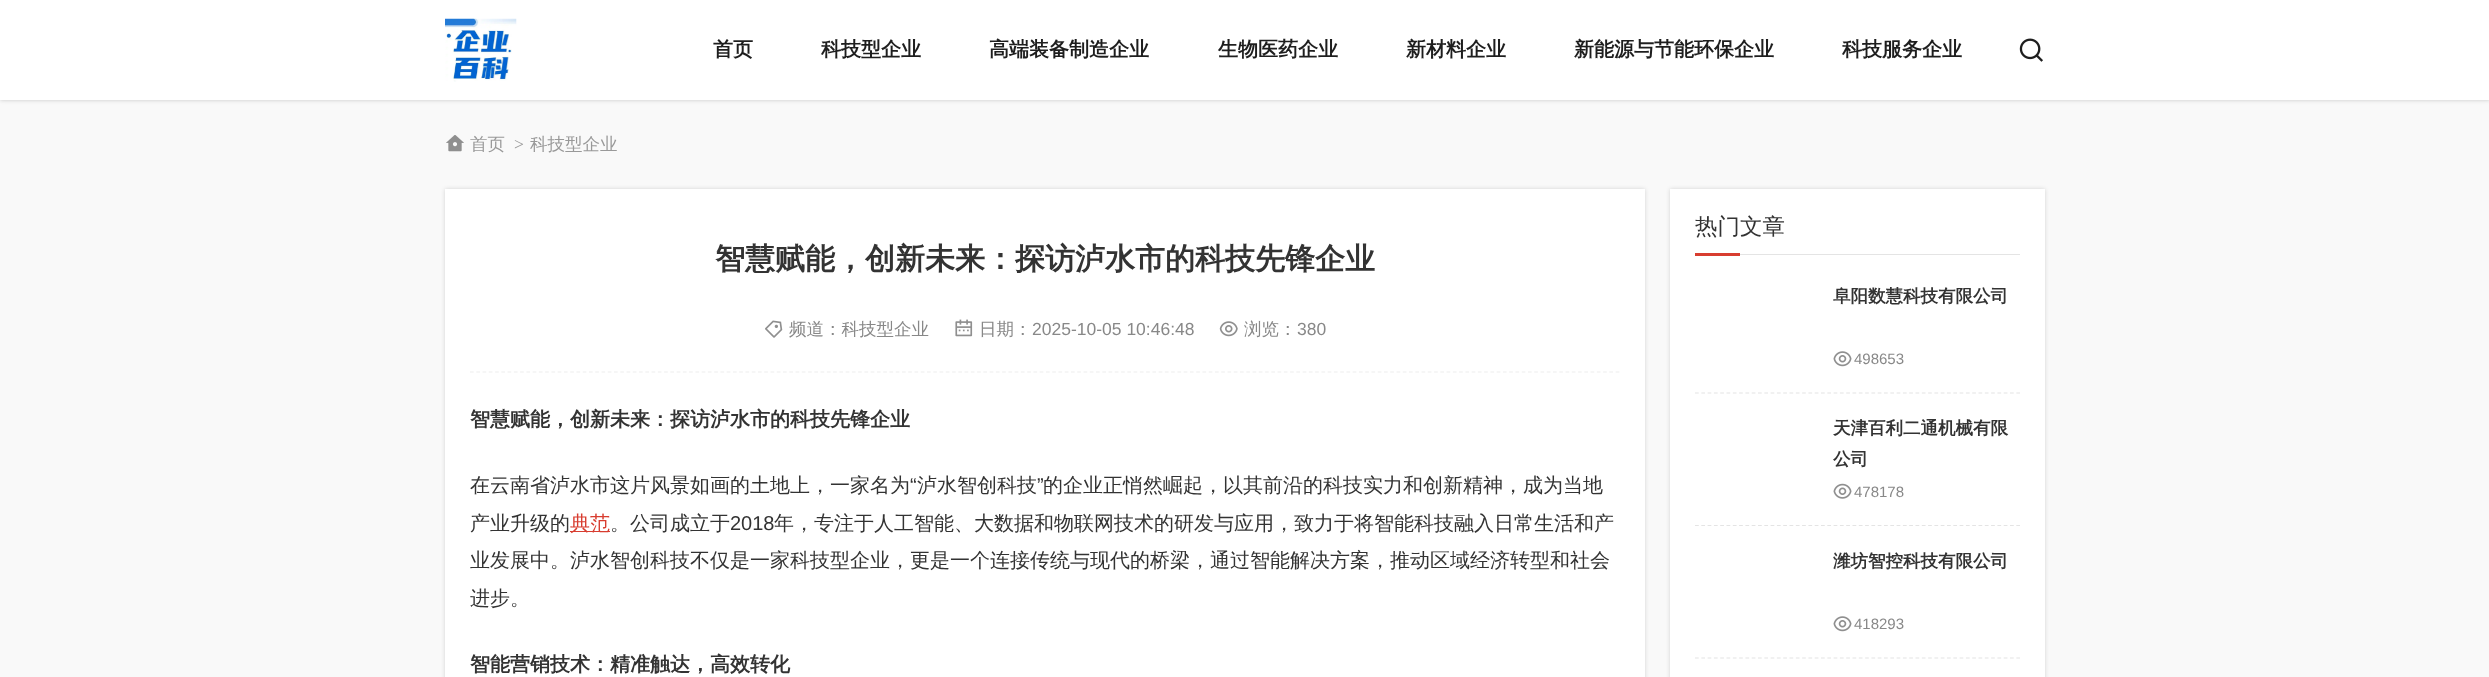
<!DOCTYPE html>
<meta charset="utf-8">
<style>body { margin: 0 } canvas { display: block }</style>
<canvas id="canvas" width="2489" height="677"></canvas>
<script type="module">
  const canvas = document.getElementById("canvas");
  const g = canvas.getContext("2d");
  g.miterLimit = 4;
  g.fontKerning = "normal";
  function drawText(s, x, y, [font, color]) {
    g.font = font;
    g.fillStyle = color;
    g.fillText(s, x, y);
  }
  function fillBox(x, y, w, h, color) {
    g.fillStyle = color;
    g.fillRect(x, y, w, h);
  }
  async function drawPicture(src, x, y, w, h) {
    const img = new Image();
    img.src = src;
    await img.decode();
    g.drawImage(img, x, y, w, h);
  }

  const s1 = ["bold 20px WenQuanYi Zen Hei", "#1E1E1E"];
  const s2 = ["500 17.5px WenQuanYi Zen Hei", "#999999"];
  const s3 = ["17.5px Liberation Serif", "#999999"];
  const s4 = ["bold 30px WenQuanYi Zen Hei", "#333333"];
  const s5 = ["500 17.5px WenQuanYi Zen Hei", "#888888"];
  const s6 = ["17.5px Liberation Sans", "#888888"];
  const s7 = ["bold 20px WenQuanYi Zen Hei", "#333333"];
  const s8 = ["500 20px WenQuanYi Zen Hei", "#333333"];
  const s9 = ["20px Liberation Sans", "#333333"];
  const s10 = ["500 20px WenQuanYi Zen Hei", "#D83D30"];
  const s11 = ["500 22.5px WenQuanYi Zen Hei", "#333333"];
  const s12 = ["bold 17.5px WenQuanYi Zen Hei", "#333333"];
  const s13 = ["15px Liberation Sans", "#888888"];

  fillBox(0, 0, 2489, 677, "#F9F9F9");
  g.fillStyle = "rgba(0, 0, 0, 0.2)";
  g.filter = "blur(2px)";
  g.beginPath();
  g.rect(0, 0, 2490, 100);
  g.fill();
  g.filter = "none";
  fillBox(0, 0, 2489, 100, "#FFFFFF");
  await drawPicture("pic1.png", 445, 18, 72, 64);
  drawText("首页", 713, 56, s1);
  drawText("科技型企业", 821, 56, s1);
  drawText("高端装备制造企业", 989, 56, s1);
  drawText("生物医药企业", 1218, 56, s1);
  drawText("新材料企业", 1406, 56, s1);
  drawText("新能源与节能环保企业", 1574, 56, s1);
  drawText("科技服务企业", 1842, 56, s1);
  await drawPicture("pic2.png", 2019, 38, 24, 24);
  await drawPicture("pic3.png", 446, 135, 18, 17);
  drawText("首页", 470, 150, s2);
  drawText(">", 514, 150, s3);
  drawText("科技型企业", 530, 150, s2);
  g.fillStyle = "rgba(0, 0, 0, 0.15)";
  g.filter = "blur(2px)";
  g.beginPath();
  g.rect(445, 189, 1200, 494);
  g.fill();
  g.filter = "none";
  fillBox(445, 189, 1200, 488, "#FFFFFF");
  drawText("智慧赋能，创新未来：探访泸水市的科技先锋企业", 715, 269, s4);
  g.beginPath();
  g.moveTo(470, 372);
  g.lineTo(1620, 372);
  g.strokeStyle = "#EEEEEE";
  g.lineWidth = 1.2;
  g.setLineDash([3.75, 2.51]);
  g.stroke();
  await drawPicture("pic4.png", 765, 320, 18, 18);
  drawText("频道：科技型企业", 789, 335, s5);
  await drawPicture("pic5.png", 955, 319, 18, 18);
  drawText("日期：", 979, 335, s5);
  drawText("2025-10-05 10:46:48", 1032, 335, s6);
  await drawPicture("pic6.png", 1219, 321, 19, 16);
  drawText("浏览：", 1244, 335, s5);
  drawText("380", 1297, 335, s6);
  drawText("智慧赋能，创新未来：探访泸水市的科技先锋企业", 470, 426, s7);
  drawText("在云南省泸水市这片风景如画的土地上，一家名为", 470, 492, s8);
  drawText("“", 910, 492, s9);
  drawText("泸水智创科技", 917, 492, s8);
  drawText("”", 1037, 492, s9);
  drawText("的企业正悄然崛起，以其前沿的科技实力和创新精神，成为当地", 1043, 492, s8);
  drawText("产业升级的", 470, 530, s8);
  fillBox(570, 531, 40, 1, "#D83D30");
  drawText("典范", 570, 530, s10);
  drawText("。公司成立于", 610, 530, s8);
  drawText("2018", 730, 530, s9);
  drawText("年，专注于人工智能、大数据和物联网技术的研发与应用，致力于将智能科技融入日常生活和产", 774, 530, s8);
  drawText("业发展中。泸水智创科技不仅是一家科技型企业，更是一个连接传统与现代的桥梁，通过智能解决方案，推动区域经济转型和社会", 470, 567, s8);
  drawText("进步。", 470, 605, s8);
  drawText("智能营销技术：精准触达，高效转化", 470, 671, s7);
  g.fillStyle = "rgba(0, 0, 0, 0.15)";
  g.filter = "blur(2px)";
  g.beginPath();
  g.rect(1670, 189, 375, 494);
  g.fill();
  g.filter = "none";
  fillBox(1670, 189, 375, 488, "#FFFFFF");
  fillBox(1740, 254, 280, 1, "#E4E4E4");
  drawText("热门文章", 1695, 234, s11);
  fillBox(1695, 253, 45, 3, "#D83D30");
  g.beginPath();
  g.moveTo(1695, 393);
  g.lineTo(2020, 393);
  g.strokeStyle = "#E4E4E4";
  g.setLineDash([3.75, 2.55]);
  g.stroke();
  drawText("阜阳数慧科技有限公司", 1833, 302, s12);
  await drawPicture("pic7.png", 1833, 351, 19, 16);
  drawText("498653", 1854, 364, s13);
  g.beginPath();
  g.moveTo(1695, 525.5);
  g.lineTo(2020, 525.5);
  g.stroke();
  drawText("天津百利二通机械有限", 1833, 434, s12);
  drawText("公司", 1833, 465, s12);
  await drawPicture("pic8.png", 1833, 483, 19, 16);
  drawText("478178", 1854, 497, s13);
  g.beginPath();
  g.moveTo(1695, 658);
  g.lineTo(2020, 658);
  g.stroke();
  drawText("潍坊智控科技有限公司", 1833, 567, s12);
  await drawPicture("pic7.png", 1833, 616, 19, 16);
  drawText("418293", 1854, 629, s13);
</script>
